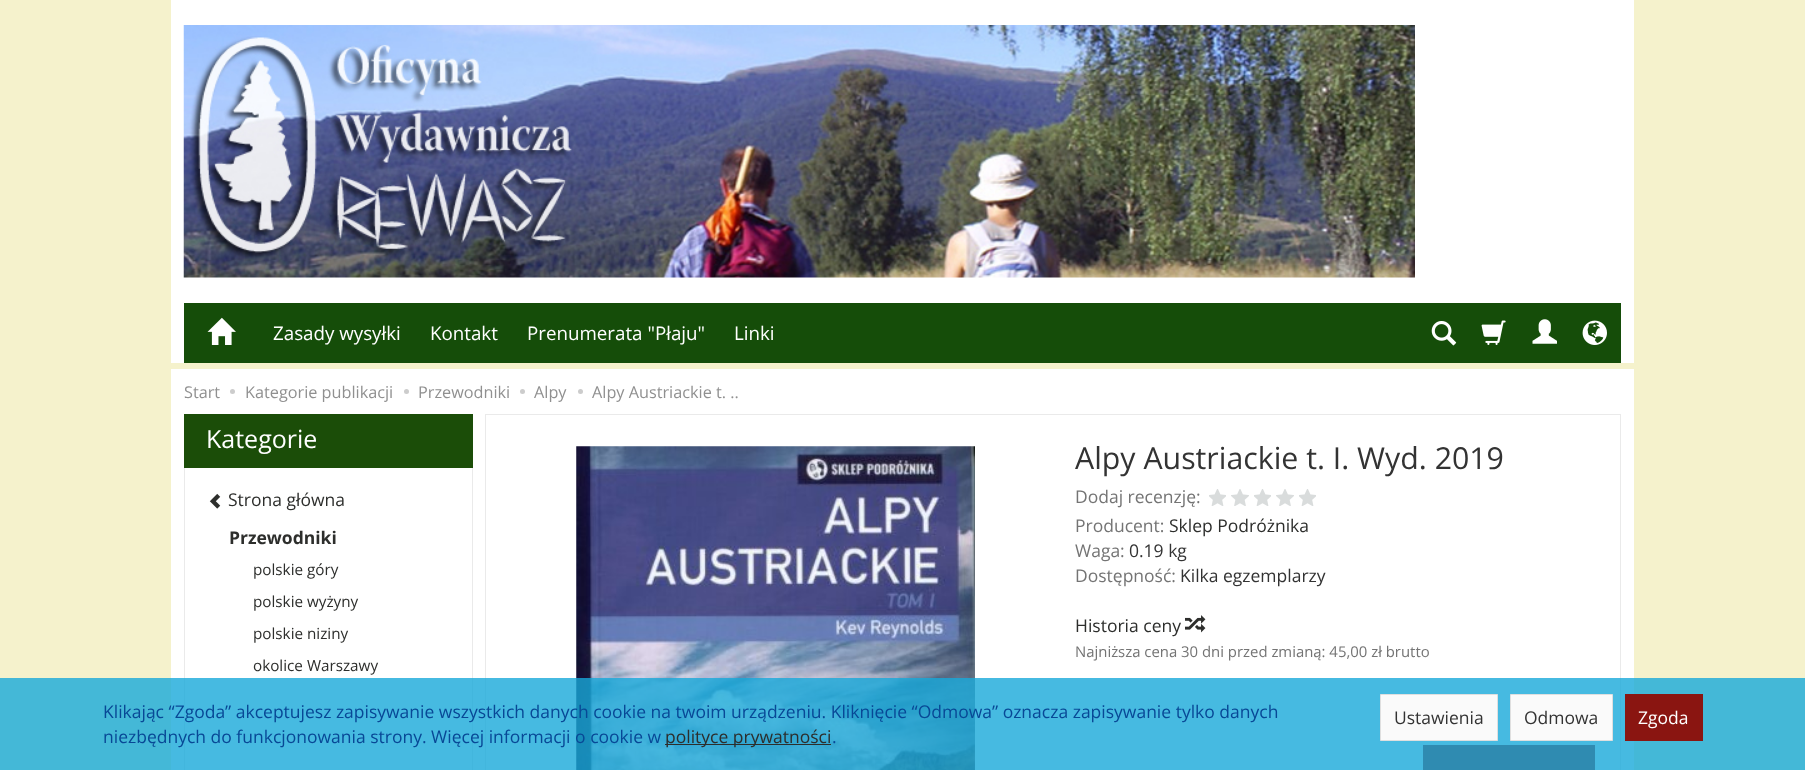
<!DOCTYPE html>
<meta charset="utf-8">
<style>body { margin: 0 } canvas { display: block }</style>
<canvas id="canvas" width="1805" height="770"></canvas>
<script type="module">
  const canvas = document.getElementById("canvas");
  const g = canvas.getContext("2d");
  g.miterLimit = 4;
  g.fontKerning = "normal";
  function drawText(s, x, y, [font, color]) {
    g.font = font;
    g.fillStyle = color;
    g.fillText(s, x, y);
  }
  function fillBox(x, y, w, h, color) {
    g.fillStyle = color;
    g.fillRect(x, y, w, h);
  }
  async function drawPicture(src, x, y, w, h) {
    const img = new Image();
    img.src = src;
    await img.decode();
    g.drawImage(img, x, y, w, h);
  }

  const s1 = ["18.75px Open Sans", "#FFFFFF"];
  const s2 = ["16.25px Open Sans", "#909090"];
  const s3 = ["25px Open Sans", "#FFFFFF"];
  const s4 = ["17.5px Open Sans", "#2D2E2C"];
  const s5 = ["bold 17.5px Open Sans", "#2D2E2C"];
  const s6 = ["15.25px Open Sans", "#2D2E2C"];
  const s7 = ["30.3px Open Sans", "#333333"];
  const s8 = ["17.5px Open Sans", "#747474"];
  const s9 = ["17.5px Open Sans", "#333333"];
  const s10 = ["14.9px Open Sans", "#747474"];
  const s11 = ["17.5px Open Sans", "#084896"];
  const s12 = ["17.5px Open Sans", "#FFFFFF"];

  fillBox(0, 0, 1805, 770, "#F5F2CC");
  fillBox(171, 0, 1463, 363, "#FFFFFF");
  await drawPicture("pic1.png", 183, 25, 1232, 253);
  fillBox(184, 303, 1437, 60, "#154D09");
  await drawPicture("pic2.png", 207, 317, 29, 28);
  drawText("Zasady wysyłki", 273, 340, s1);
  drawText("Kontakt", 430, 340, s1);
  drawText("Prenumerata \"Płaju\"", 527, 340, s1);
  drawText("Linki", 734, 340, s1);
  await drawPicture("pic3.png", 1431, 321, 26, 25);
  await drawPicture("pic4.png", 1481, 320, 25, 25);
  await drawPicture("pic5.png", 1532, 319, 25, 25);
  await drawPicture("pic6.png", 1582, 320, 25, 25);
  fillBox(171, 369, 1463, 401, "#FFFFFF");
  drawText("Start", 184, 398, s2);
  g.fillStyle = "#CCCCCC";
  g.beginPath();
  g.arc(232.5, 391.5, 2.5, 0, Math.PI * 2);
  g.fill();
  drawText("Kategorie publikacji", 245, 398, s2);
  g.fillStyle = "#CCCCCC";
  g.beginPath();
  g.arc(406.5, 391.5, 2.5, 0, Math.PI * 2);
  g.fill();
  drawText("Przewodniki", 418, 398, s2);
  g.fillStyle = "#CCCCCC";
  g.beginPath();
  g.arc(522.5, 391.5, 2.5, 0, Math.PI * 2);
  g.fill();
  drawText("Alpy", 534, 398, s2);
  g.fillStyle = "#CCCCCC";
  g.beginPath();
  g.arc(580.5, 391.5, 2.5, 0, Math.PI * 2);
  g.fill();
  drawText("Alpy Austriackie t. ..", 592, 398, s2);
  g.strokeStyle = "#EAEAEA";
  g.strokeRect(184.5, 414.5, 288, 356);
  fillBox(184, 414, 289, 54, "#1B4D08");
  drawText("Kategorie", 206, 448, s3);
  await drawPicture("pic7.png", 209, 493, 12, 16);
  drawText("Strona główna", 228, 506, s4);
  drawText("Przewodniki", 229, 544, s5);
  drawText("polskie góry", 253, 575, s6);
  drawText("polskie wyżyny", 253, 607, s6);
  drawText("polskie niziny", 253, 639, s6);
  drawText("okolice Warszawy", 253, 671, s6);
  g.strokeRect(485.5, 414.5, 1135, 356);
  await drawPicture("pic8.png", 576, 446, 399, 324);
  drawText("Alpy Austriackie t. I. Wyd. 2019", 1075, 469, s7);
  drawText("Dodaj recenzję:", 1075, 503, s8);
  await drawPicture("pic9.png", 1209, 489, 17, 17);
  await drawPicture("pic10.png", 1231, 489, 18, 17);
  await drawPicture("pic9.png", 1254, 489, 17, 17);
  await drawPicture("pic10.png", 1276, 489, 18, 17);
  await drawPicture("pic9.png", 1299, 489, 17, 17);
  drawText("Producent:", 1075, 532, s8);
  drawText("Sklep Podróżnika", 1169, 532, s4);
  drawText("Waga:", 1075, 557, s8);
  drawText("0.19 kg", 1129, 557, s9);
  drawText("Dostępność:", 1075, 582, s8);
  drawText("Kilka egzemplarzy", 1180, 582, s9);
  drawText("Historia ceny", 1075, 632, s4);
  await drawPicture("pic11.png", 1185, 615, 21, 18);
  drawText("Najniższa cena 30 dni przed zmianą: 45,00 zł brutto", 1075, 657, s10);
  fillBox(1423, 745, 172, 25, "#8A1511");
  fillBox(0, 678, 1805, 92, "rgba(24, 169, 217, 0.8)");
  drawText("Klikając “Zgoda” akceptujesz zapisywanie wszystkich danych cookie na twoim urządzeniu. Kliknięcie “Odmowa” oznacza zapisywanie tylko danych", 103, 718, s11);
  drawText("niezbędnych do funkcjonowania strony. Więcej informacji o cookie w", 103, 743, s11);
  fillBox(665, 744, 166, 1, "#2D2E2C");
  drawText("polityce prywatności", 665, 743, s4);
  drawText(".", 832, 743, s11);
  g.fillStyle = "#FAFAFA";
  g.beginPath();
  g.rect(1380.5, 694.5, 117, 46);
  g.fill();
  g.strokeStyle = "#DFDFDF";
  g.stroke();
  drawText("Ustawienia", 1394, 724, s9);
  g.fillStyle = "#FAFAFA";
  g.beginPath();
  g.rect(1510.5, 694.5, 102, 46);
  g.fill();
  g.stroke();
  drawText("Odmowa", 1524, 724, s9);
  fillBox(1625, 694, 78, 47, "#8A1511");
  drawText("Zgoda", 1638, 724, s12);
</script>
